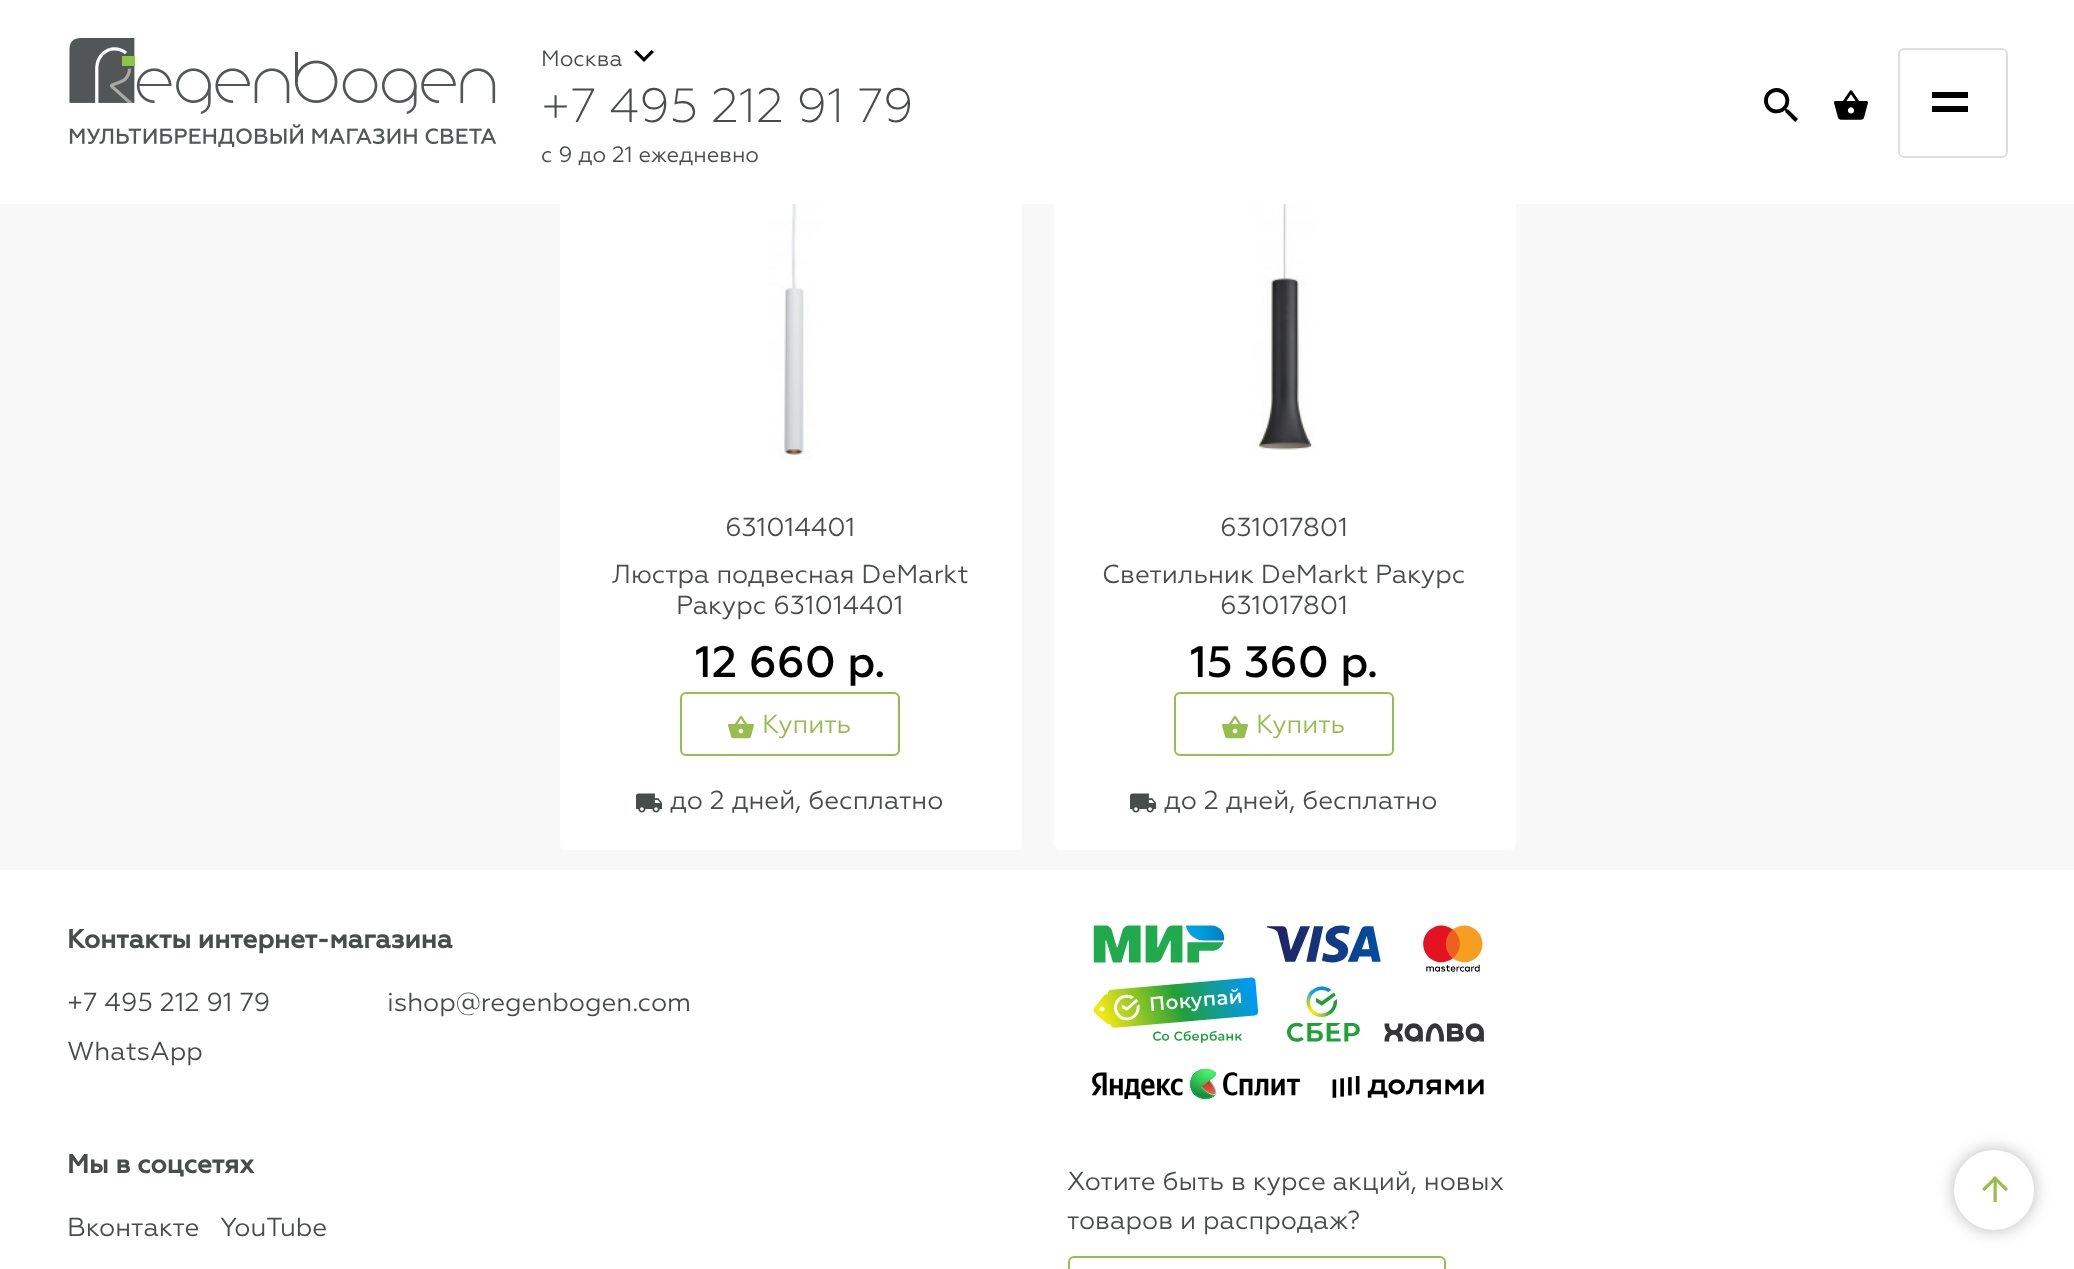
<!DOCTYPE html>
<meta charset="utf-8">
<style>body { margin: 0 } canvas { display: block }</style>
<canvas id="canvas" width="2074" height="1269"></canvas>
<script type="module">
  const canvas = document.getElementById("canvas");
  const g = canvas.getContext("2d");
  g.miterLimit = 4;
  g.fontKerning = "normal";
  function drawText(s, x, y, [font, color]) {
    g.font = font;
    g.fillStyle = color;
    g.fillText(s, x, y);
  }
  function fillBox(x, y, w, h, color) {
    g.fillStyle = color;
    g.fillRect(x, y, w, h);
  }
  function fillRounded(x, y, w, h, r, color) {
    g.fillStyle = color;
    g.beginPath();
    g.roundRect(x, y, w, h, r);
    g.fill();
  }
  async function drawPicture(src, x, y, w, h) {
    const img = new Image();
    img.src = src;
    await img.decode();
    g.drawImage(img, x, y, w, h);
  }

  const s1 = ["22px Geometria", "#484C4A"];
  const s2 = ["300 48px Geometria", "#484C4A"];
  const s3 = ["26px Geometria", "#484C4A"];
  const s4 = ["500 44px Geometria", "#000000"];
  const s5 = ["26px Geometria", "#96BD4D"];
  const s6 = ["bold 26px Geometria", "#484C4A"];

  fillBox(0, 0, 2074, 1269, "#F8F8F8");
  fillRounded(560, 12, 462, 838, 6, "#FFFFFF");
  fillRounded(1054, 12, 462, 838, 6, "#FFFFFF");
  fillBox(0, 0, 2074, 204, "#FFFFFF");
  await drawPicture("pic1.png", 69, 38, 428, 110);
  drawText("Москва", 541, 66, s1);
  g.fillStyle = "#000000";
  g.beginPath();
  g.moveTo(651.5, 50);
  g.lineTo(644, 57.5);
  g.lineTo(636.5, 50);
  g.lineTo(634, 52);
  g.lineTo(644, 62);
  g.lineTo(654, 52);
  g.closePath();
  g.fill();
  drawText("+7 495 212 91 79", 541, 122, s2);
  drawText("с 9 до 21 ежедневно", 541, 162, s1);
  await drawPicture("pic2.png", 1764, 88, 34, 34);
  await drawPicture("pic3.png", 1834, 90, 34, 30);
  g.beginPath();
  g.roundRect(1899, 49, 108, 108, 5);
  g.strokeStyle = "#DFDFDF";
  g.lineWidth = 2;
  g.stroke();
  fillBox(1932, 92, 36, 6, "#000000");
  fillBox(1932, 106, 36, 6, "#000000");
  await drawPicture("pic4.png", 769, 204, 53, 256);
  drawText("631014401", 725, 536, s3);
  drawText("Люстра подвесная DeMarkt", 612, 583, s3);
  drawText("Ракурс 631014401", 676, 614, s3);
  drawText("12 660 р.", 695, 677, s4);
  g.beginPath();
  g.roundRect(681, 693, 218, 62, 5);
  g.strokeStyle = "#96BD4D";
  g.stroke();
  await drawPicture("pic5.png", 728, 715, 26, 24);
  drawText("Купить", 762, 733, s5);
  await drawPicture("pic6.png", 636, 793, 26, 20);
  drawText("до 2 дней, бесплатно", 670, 809, s3);
  await drawPicture("pic7.png", 1251, 204, 65, 246);
  drawText("631017801", 1220, 536, s3);
  drawText("Светильник DeMarkt Ракурс", 1102, 583, s3);
  drawText("631017801", 1220, 614, s3);
  drawText("15 360 р.", 1190, 677, s4);
  g.beginPath();
  g.roundRect(1175, 693, 218, 62, 5);
  g.stroke();
  await drawPicture("pic5.png", 1222, 715, 26, 24);
  drawText("Купить", 1256, 733, s5);
  await drawPicture("pic6.png", 1130, 793, 26, 20);
  drawText("до 2 дней, бесплатно", 1164, 809, s3);
  fillBox(0, 870, 2074, 399, "#FFFFFF");
  drawText("Контакты интернет-магазина", 67, 948, s6);
  drawText("+7 495 212 91 79", 67, 1011, s3);
  drawText("ishop@regenbogen.com", 387, 1011, s3);
  drawText("WhatsApp", 67, 1060, s3);
  drawText("Мы в соцсетях", 67, 1173, s6);
  drawText("Вконтакте", 67, 1236, s3);
  drawText("YouTube", 220, 1236, s3);
  await drawPicture("pic8.png", 1091, 925, 393, 174);
  drawText("Хотите быть в курсе акций, новых", 1067, 1190, s3);
  drawText("товаров и распродаж?", 1067, 1229, s3);
  g.beginPath();
  g.roundRect(1069, 1257, 376, 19, 5);
  g.stroke();
  g.fillStyle = "rgba(0, 0, 0, 0.28)";
  g.filter = "blur(8.5px)";
  g.beginPath();
  g.roundRect(1954, 1150, 80, 80, 40);
  g.fill();
  g.filter = "none";
  g.fillStyle = "#FFFFFF";
  g.beginPath();
  g.arc(1994, 1190, 39, 0, Math.PI * 2);
  g.fill();
  g.strokeStyle = "#FFFFFF";
  g.stroke();
  await drawPicture("pic9.png", 1982, 1176, 26, 26);
</script>
